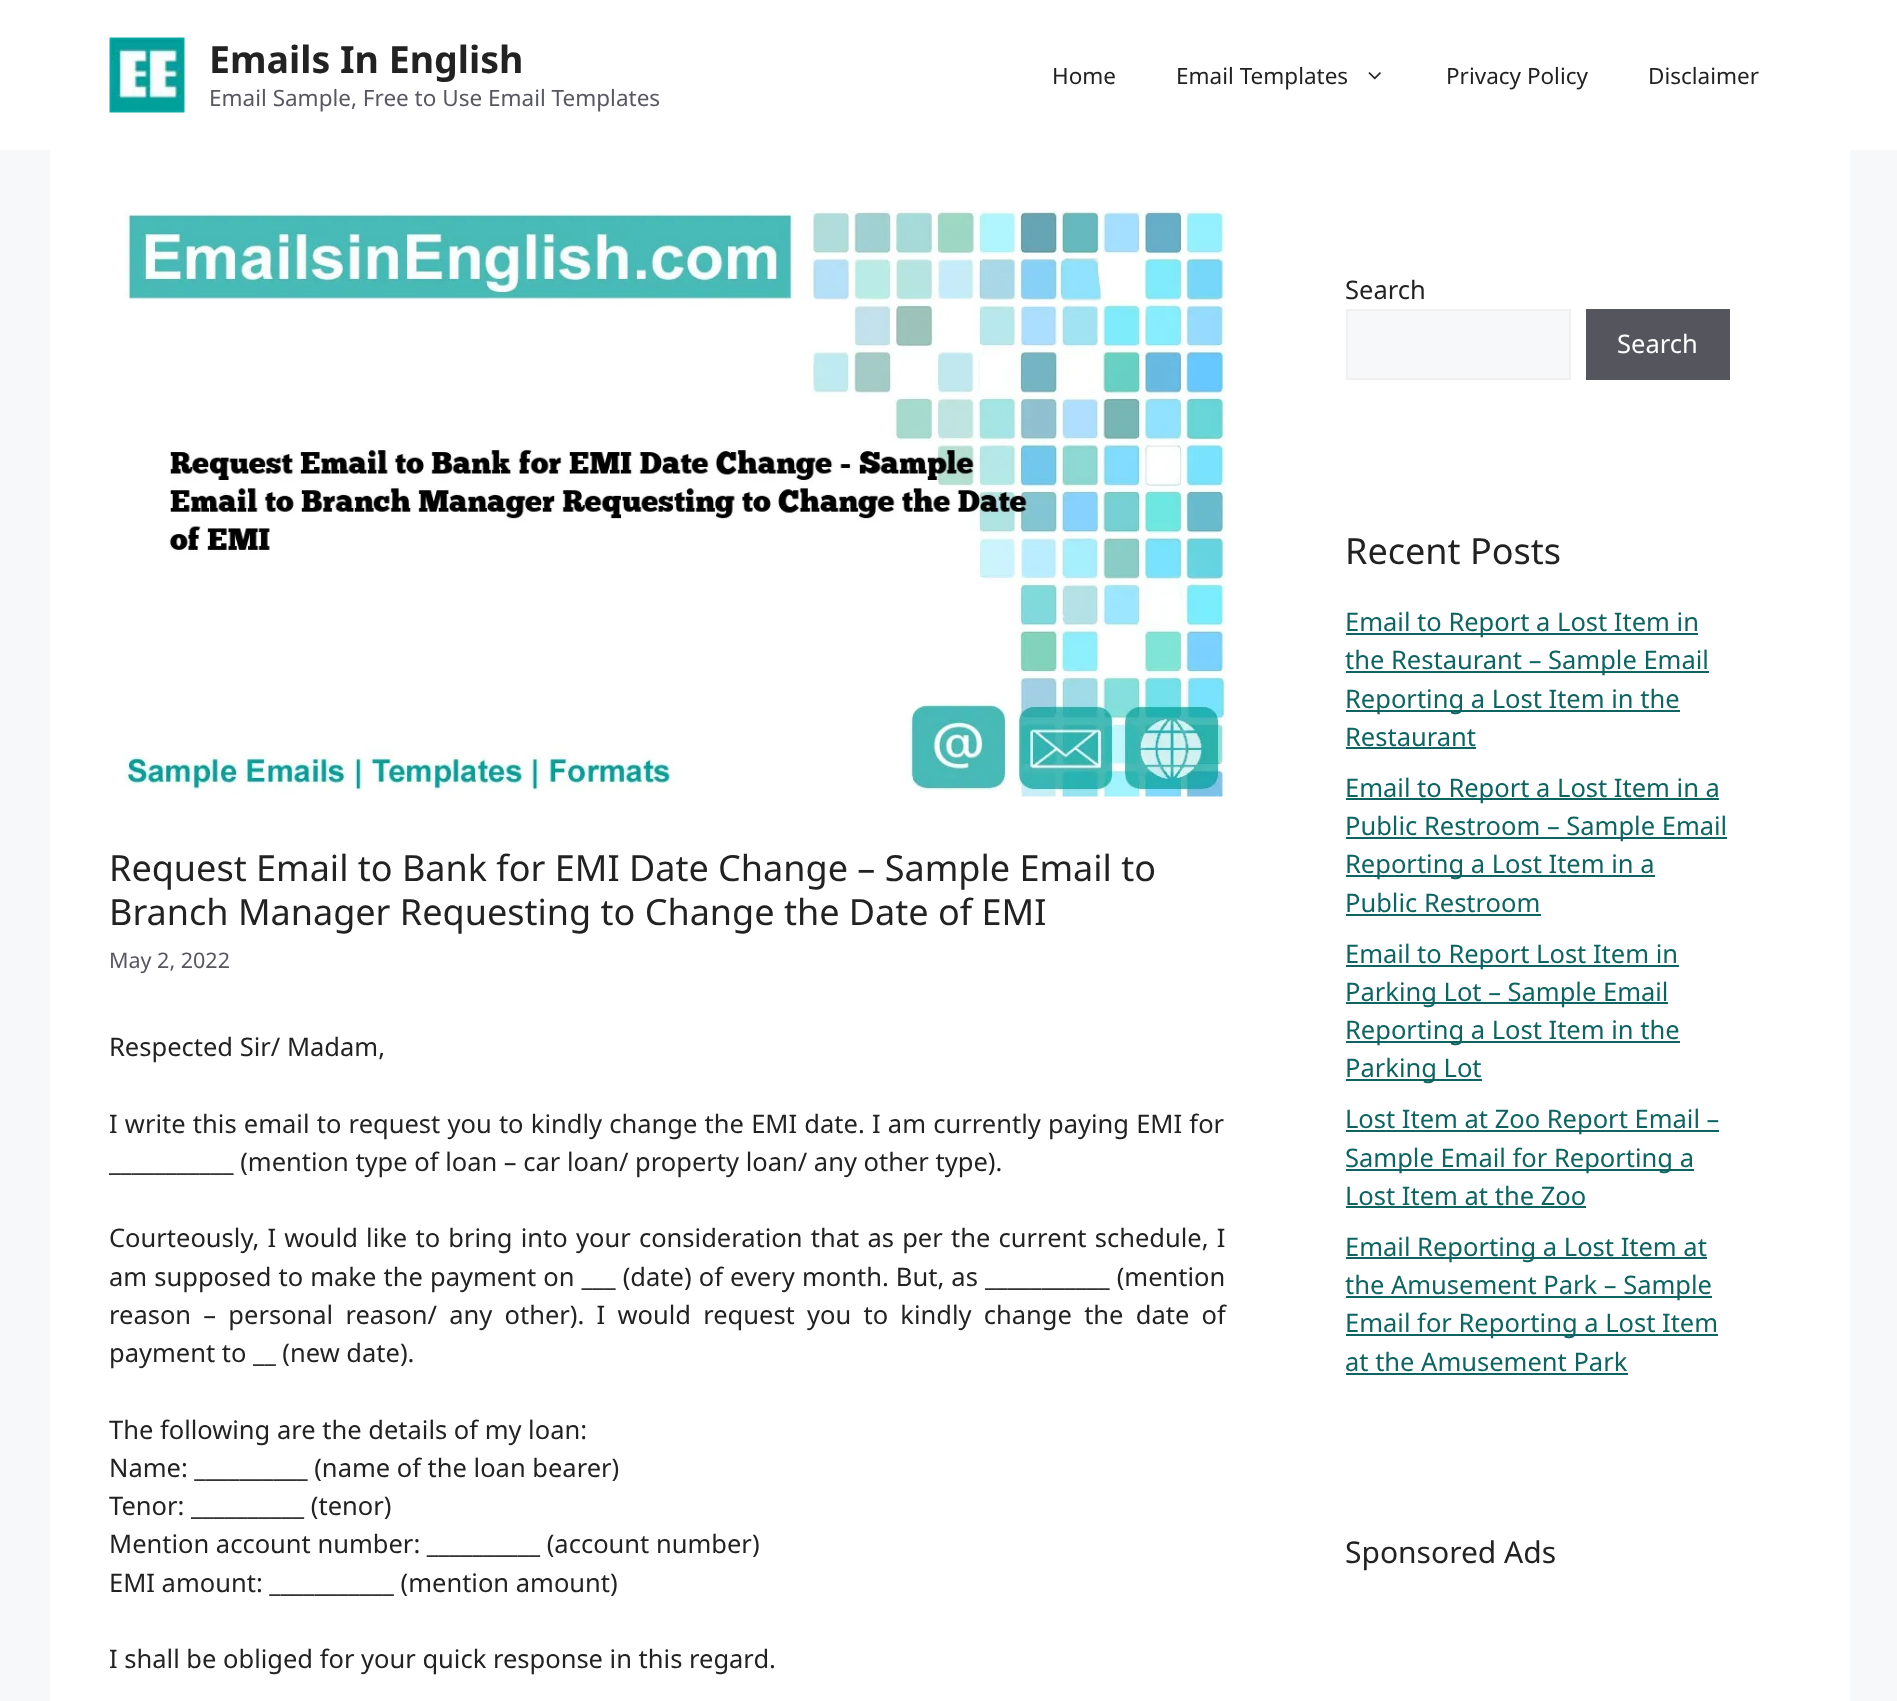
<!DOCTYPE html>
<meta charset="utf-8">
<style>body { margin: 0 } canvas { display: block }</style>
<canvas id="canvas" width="1897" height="1701"></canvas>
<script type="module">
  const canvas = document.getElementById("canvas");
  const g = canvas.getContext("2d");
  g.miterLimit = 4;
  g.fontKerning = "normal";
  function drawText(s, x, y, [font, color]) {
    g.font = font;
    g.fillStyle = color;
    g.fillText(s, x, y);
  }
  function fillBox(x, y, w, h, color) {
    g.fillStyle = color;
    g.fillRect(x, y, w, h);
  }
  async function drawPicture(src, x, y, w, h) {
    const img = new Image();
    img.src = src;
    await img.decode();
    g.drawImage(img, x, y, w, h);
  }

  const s1 = ["bold 37.5px Noto Sans", "#222222"];
  const s2 = ["22.5px Noto Sans", "#575760"];
  const s3 = ["22.5px Noto Sans", "#222222"];
  const s4 = ["36px Noto Sans", "#222222"];
  const s5 = ["21.5px Noto Sans", "#575760"];
  const s6 = ["25.5px Noto Sans", "#222222"];
  const s7 = ["25.5px Noto Sans", "#FFFFFF"];
  const s8 = ["25.5px Noto Sans", "#0F6360"];
  const s9 = ["30px Noto Sans", "#222222"];

  fillBox(0, 0, 1897, 1701, "#F7F8F9");
  fillBox(0, 0, 1897, 150, "#FFFFFF");
  await drawPicture("pic1.png", 109, 37, 76, 76);
  drawText("Emails In English", 209, 73, s1);
  drawText("Email Sample, Free to Use Email Templates", 209, 106, s2);
  drawText("Home", 1052, 84, s3);
  drawText("Email Templates", 1176, 84, s3);
  await drawPicture("pic2.png", 1368, 72, 13, 8);
  drawText("Privacy Policy", 1446, 84, s3);
  drawText("Disclaimer", 1648, 84, s3);
  fillBox(50, 150, 1800, 1551, "#FFFFFF");
  await drawPicture("pic3.png", 124, 210, 1102, 587);
  drawText("Request Email to Bank for EMI Date Change – Sample Email to", 109, 881, s4);
  drawText("Branch Manager Requesting to Change the Date of EMI", 109, 925, s4);
  drawText("May 2, 2022", 109, 968, s5);
  drawText("Respected Sir/ Madam,", 109, 1056, s6);
  g.wordSpacing = "0.6px";
  drawText("I write this email to request you to kindly change the EMI date. I am currently paying EMI for", 109, 1133, s6);
  g.wordSpacing = "0px";
  drawText("___________ (mention type of loan – car loan/ property loan/ any other type).", 109, 1171, s6);
  g.wordSpacing = "1.6px";
  drawText("Courteously, I would like to bring into your consideration that as per the current schedule, I", 109, 1247, s6);
  g.wordSpacing = "0.5px";
  drawText("am supposed to make the payment on ___ (date) of every month. But, as ___________ (mention", 109, 1286, s6);
  g.wordSpacing = "5.6px";
  drawText("reason – personal reason/ any other). I would request you to kindly change the date of", 109, 1324, s6);
  g.wordSpacing = "0px";
  drawText("payment to __ (new date).", 109, 1362, s6);
  drawText("The following are the details of my loan:", 109, 1439, s6);
  drawText("Name: __________ (name of the loan bearer)", 109, 1477, s6);
  drawText("Tenor: __________ (tenor)", 109, 1515, s6);
  drawText("Mention account number: __________ (account number)", 109, 1553, s6);
  drawText("EMI amount: ___________ (mention amount)", 109, 1592, s6);
  drawText("I shall be obliged for your quick response in this regard.", 109, 1668, s6);
  drawText("Search", 1345, 299, s6);
  g.fillStyle = "#F7F8F9";
  g.beginPath();
  g.rect(1347, 310, 223, 69);
  g.fill();
  g.strokeStyle = "#F0F0F0";
  g.lineWidth = 2;
  g.stroke();
  fillBox(1586, 309, 144, 71, "#55555E");
  drawText("Search", 1617, 353, s7);
  drawText("Recent Posts", 1345, 564, s4);
  fillBox(1346, 633, 352, 2, "#0F6360");
  drawText("Email to Report a Lost Item in", 1345, 631, s8);
  fillBox(1346, 671, 363, 2, "#0F6360");
  drawText("the Restaurant – Sample Email", 1345, 669, s8);
  fillBox(1346, 710, 334, 2, "#0F6360");
  drawText("Reporting a Lost Item in the", 1345, 708, s8);
  drawText("Restaurant", 1345, 746, s8);
  fillBox(1346, 747, 130, 2, "#0F6360");
  fillBox(1346, 798, 373, 2, "#0F6360");
  drawText("Email to Report a Lost Item in a", 1345, 797, s8);
  fillBox(1346, 837, 381, 2, "#0F6360");
  drawText("Public Restroom – Sample Email", 1345, 835, s8);
  fillBox(1346, 875, 309, 2, "#0F6360");
  drawText("Reporting a Lost Item in a", 1345, 873, s8);
  drawText("Public Restroom", 1345, 912, s8);
  fillBox(1346, 914, 195, 2, "#0F6360");
  fillBox(1346, 965, 333, 2, "#0F6360");
  drawText("Email to Report Lost Item in", 1345, 963, s8);
  fillBox(1346, 1002, 322, 2, "#0F6360");
  drawText("Parking Lot – Sample Email", 1345, 1001, s8);
  fillBox(1346, 1041, 334, 2, "#0F6360");
  drawText("Reporting a Lost Item in the", 1345, 1039, s8);
  fillBox(1346, 1079, 136, 2, "#0F6360");
  drawText("Parking Lot", 1345, 1077, s8);
  fillBox(1346, 1130, 373, 2, "#0F6360");
  drawText("Lost Item at Zoo Report Email –", 1345, 1128, s8);
  fillBox(1346, 1169, 348, 2, "#0F6360");
  drawText("Sample Email for Reporting a", 1345, 1167, s8);
  drawText("Lost Item at the Zoo", 1345, 1205, s8);
  fillBox(1346, 1206, 240, 2, "#0F6360");
  fillBox(1346, 1257, 361, 2, "#0F6360");
  drawText("Email Reporting a Lost Item at", 1345, 1256, s8);
  fillBox(1346, 1296, 366, 2, "#0F6360");
  drawText("the Amusement Park – Sample", 1345, 1294, s8);
  fillBox(1346, 1334, 372, 2, "#0F6360");
  drawText("Email for Reporting a Lost Item", 1345, 1332, s8);
  drawText("at the Amusement Park", 1345, 1371, s8);
  fillBox(1346, 1373, 282, 2, "#0F6360");
  drawText("Sponsored Ads", 1345, 1563, s9);
</script>
